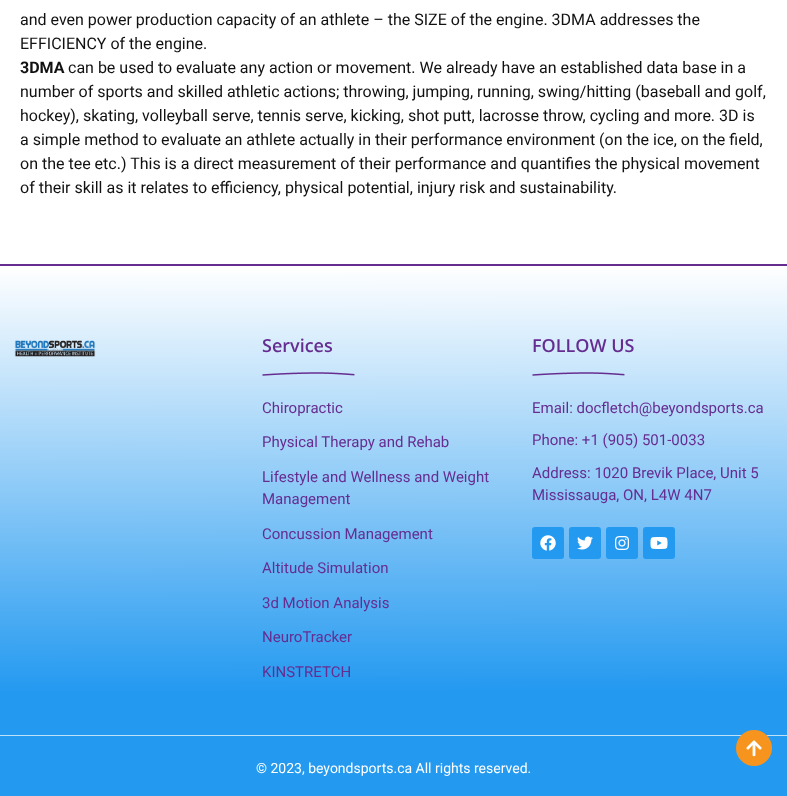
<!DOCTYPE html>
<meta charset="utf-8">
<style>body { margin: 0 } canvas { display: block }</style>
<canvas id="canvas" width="787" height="796"></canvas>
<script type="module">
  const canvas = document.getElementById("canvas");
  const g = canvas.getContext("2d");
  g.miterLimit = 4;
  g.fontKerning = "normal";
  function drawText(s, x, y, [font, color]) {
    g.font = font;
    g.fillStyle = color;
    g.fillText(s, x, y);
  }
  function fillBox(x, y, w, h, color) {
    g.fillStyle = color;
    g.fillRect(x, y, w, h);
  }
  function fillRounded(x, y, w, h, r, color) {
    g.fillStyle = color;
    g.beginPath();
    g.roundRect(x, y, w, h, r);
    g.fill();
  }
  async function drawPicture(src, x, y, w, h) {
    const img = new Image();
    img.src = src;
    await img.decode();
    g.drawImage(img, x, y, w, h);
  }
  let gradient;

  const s1 = ["16px Roboto", "#111111"];
  const s2 = ["bold 16px Roboto", "#111111"];
  const s3 = ["600 18px Open Sans", "#662D91"];
  const s4 = ["15px Roboto", "#662D91"];
  const s5 = ["14px Roboto", "#FFFFFF"];

  fillBox(0, 0, 787, 796, "#FFFFFF");
  drawText("and even power production capacity of an athlete – the SIZE of the engine. 3DMA addresses the", 20, 25, s1);
  drawText("EFFICIENCY of the engine.", 20, 49, s1);
  drawText("3DMA", 20, 73, s2);
  drawText("can be used to evaluate any action or movement. We already have an established data base in a", 68, 73, s1);
  drawText("number of sports and skilled athletic actions; throwing, jumping, running, swing/hitting (baseball and golf,", 20, 97, s1);
  drawText("hockey), skating, volleyball serve, tennis serve, kicking, shot putt, lacrosse throw, cycling and more. 3D is", 20, 121, s1);
  drawText("a simple method to evaluate an athlete actually in their performance environment (on the ice, on the field,", 20, 145, s1);
  drawText("on the tee etc.) This is a direct measurement of their performance and quantifies the physical movement", 20, 169, s1);
  drawText("of their skill as it relates to efficiency, physical potential, injury risk and sustainability.", 20, 193, s1);
  gradient = g.createLinearGradient(393, 266, 394, 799);
  gradient.addColorStop(0, "#FFFFFF");
  gradient.addColorStop(0.8, "#2399F0");
  g.fillStyle = gradient;
  g.fillRect(0, 270, 787, 526);
  fillBox(0, 264, 787, 2, "#662D91");
  await drawPicture("pic1.png", 14, 340, 82, 17);
  drawText("Services", 262, 352, s3);
  await drawPicture("pic2.png", 262, 372, 93, 4);
  drawText("Chiropractic", 262, 413, s4);
  drawText("Physical Therapy and Rehab", 262, 447, s4);
  drawText("Lifestyle and Wellness and Weight", 262, 482, s4);
  drawText("Management", 262, 504, s4);
  drawText("Concussion Management", 262, 539, s4);
  drawText("Altitude Simulation", 262, 573, s4);
  drawText("3d Motion Analysis", 262, 608, s4);
  drawText("NeuroTracker", 262, 642, s4);
  drawText("KINSTRETCH", 262, 677, s4);
  drawText("FOLLOW US", 532, 352, s3);
  await drawPicture("pic3.png", 532, 372, 93, 4);
  drawText("Email: docfletch@beyondsports.ca", 532, 413, s4);
  drawText("Phone: +1 (905) 501-0033", 532, 445, s4);
  drawText("Address: 1020 Brevik Place, Unit 5", 532, 478, s4);
  drawText("Mississauga, ON, L4W 4N7", 532, 500, s4);
  fillRounded(532, 527, 32, 32, 3, "#2399F0");
  await drawPicture("pic4.png", 540, 535, 16, 16);
  fillRounded(569, 527, 32, 32, 3, "#2399F0");
  await drawPicture("pic5.png", 577, 536, 16, 14);
  fillRounded(606, 527, 32, 32, 3, "#2399F0");
  await drawPicture("pic6.png", 615, 536, 14, 14);
  fillRounded(643, 527, 32, 32, 3, "#2399F0");
  await drawPicture("pic7.png", 650, 537, 18, 12);
  fillBox(0, 735, 787, 1, "#BFE0F9");
  g.fillStyle = "#F7941E";
  g.beginPath();
  g.arc(754, 748, 18, 0, Math.PI * 2);
  g.fill();
  await drawPicture("pic8.png", 746, 740, 16, 17);
  drawText("© 2023, beyondsports.ca All rights reserved.", 256, 773, s5);
</script>
